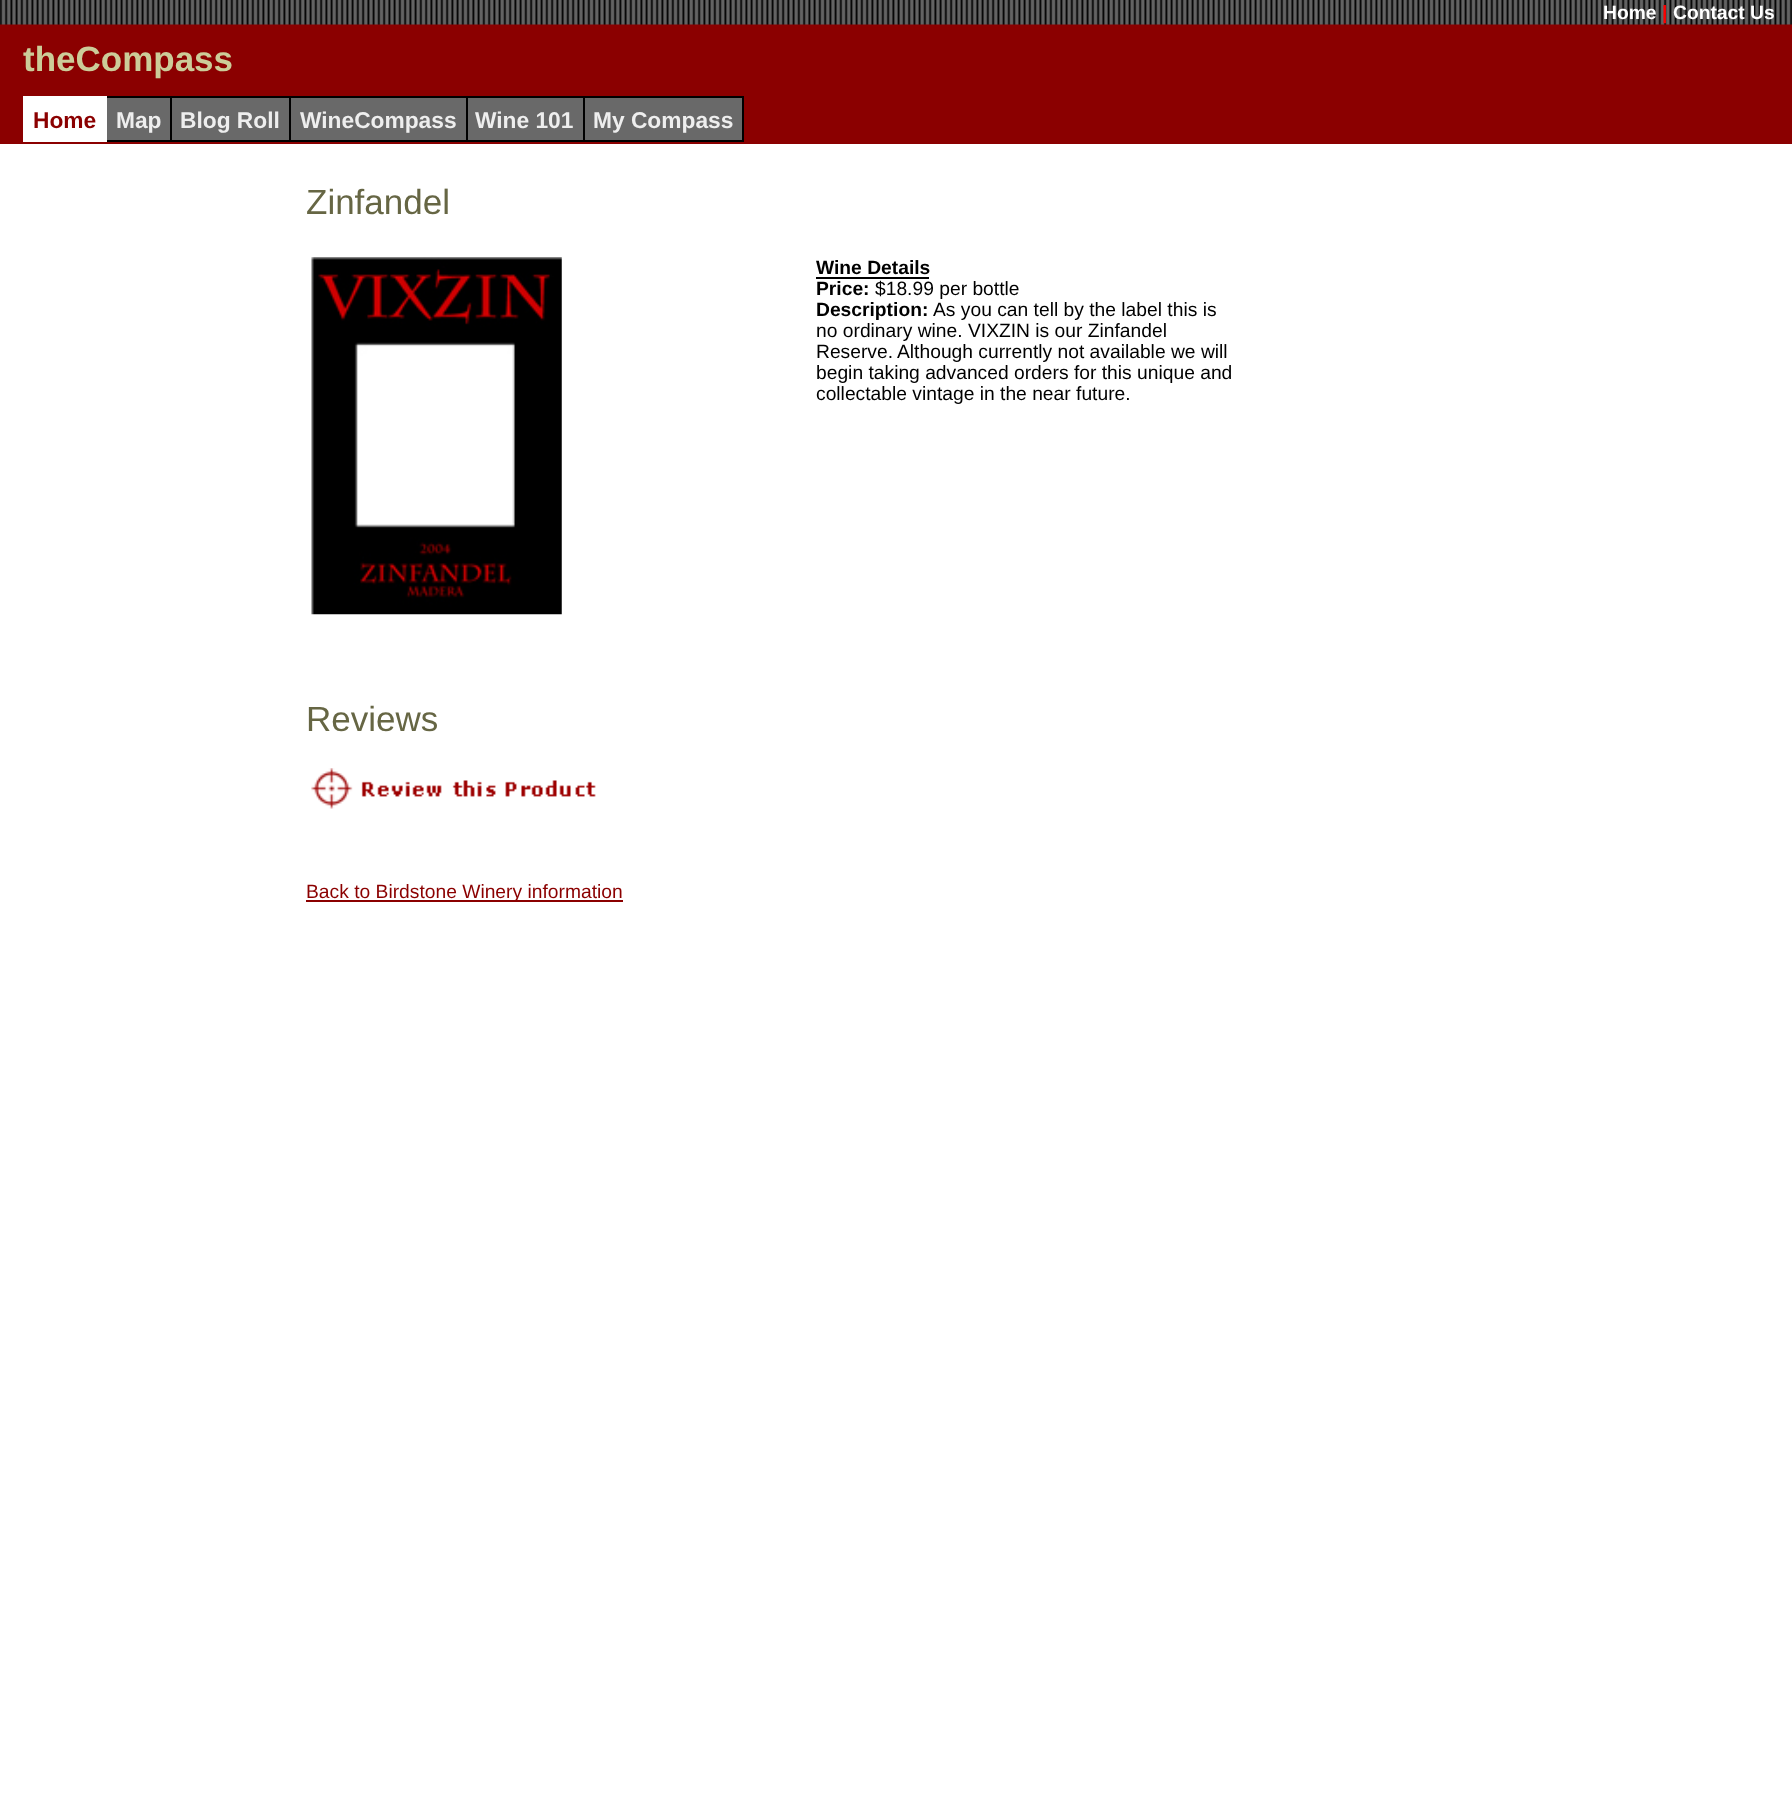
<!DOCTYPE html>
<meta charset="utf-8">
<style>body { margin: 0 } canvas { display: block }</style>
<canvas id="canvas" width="1792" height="1798"></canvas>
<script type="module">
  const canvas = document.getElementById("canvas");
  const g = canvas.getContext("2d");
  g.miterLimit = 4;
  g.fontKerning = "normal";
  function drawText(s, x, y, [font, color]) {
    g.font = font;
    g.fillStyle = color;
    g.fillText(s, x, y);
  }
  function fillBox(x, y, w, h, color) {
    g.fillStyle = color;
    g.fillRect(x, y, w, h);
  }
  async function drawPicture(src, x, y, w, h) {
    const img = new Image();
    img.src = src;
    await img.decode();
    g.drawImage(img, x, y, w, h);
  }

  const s1 = ["bold 19.25px Liberation Sans", "#FFFFFF"];
  const s2 = ["bold 19.25px Liberation Sans", "#FF0000"];
  const s3 = ["bold 35px Liberation Sans", "#CCCC99"];
  const s4 = ["bold 22.75px Liberation Sans", "#8B0000"];
  const s5 = ["bold 22.75px Liberation Sans", "#EEEEEE"];
  const s6 = ["35px Liberation Sans", "#666644"];
  const s7 = ["bold 19.25px Liberation Sans", "#000000"];
  const s8 = ["19.25px Liberation Sans", "#000000"];
  const s9 = ["19.25px Liberation Sans", "#8B0000"];

  fillBox(0, 0, 1792, 1798, "#FFFFFF");
  fillBox(0, 24, 1792, 120, "#8B0000");
  await drawPicture("pic1.png", 0, 0, 1792, 25);
  drawText("Home", 1603, 19, s1);
  drawText("|", 1662, 19, s2);
  drawText("Contact Us", 1673, 19, s1);
  drawText("theCompass", 23, 71, s3);
  fillBox(107, 98, 635, 42, "#696969");
  fillBox(25, 98, 80, 42, "#FFFFFF");
  fillBox(583, 96, 161, 2, "#000000");
  fillBox(742, 96, 2, 46, "#000000");
  fillBox(583, 140, 161, 2, "#000000");
  fillBox(583, 96, 2, 46, "#000000");
  fillBox(466, 96, 119, 2, "#000000");
  fillBox(466, 140, 119, 2, "#000000");
  fillBox(466, 96, 2, 46, "#000000");
  fillBox(289, 96, 178, 2, "#000000");
  fillBox(289, 140, 178, 2, "#000000");
  fillBox(289, 96, 2, 46, "#000000");
  fillBox(170, 96, 121, 2, "#000000");
  fillBox(170, 140, 121, 2, "#000000");
  fillBox(170, 96, 2, 46, "#000000");
  fillBox(105, 96, 67, 2, "#000000");
  fillBox(23, 96, 84, 2, "#FFFFFF");
  fillBox(105, 140, 67, 2, "#000000");
  fillBox(105, 96, 2, 46, "#FFFFFF");
  fillBox(23, 140, 84, 2, "#FFFFFF");
  fillBox(23, 96, 2, 46, "#FFFFFF");
  drawText("Home", 33, 128, s4);
  drawText("Map", 116, 128, s5);
  drawText("Blog Roll", 180, 128, s5);
  drawText("WineCompass", 300, 128, s5);
  drawText("Wine 101", 475, 128, s5);
  drawText("My Compass", 593, 128, s5);
  drawText("Zinfandel", 306, 214, s6);
  await drawPicture("pic2.png", 311, 257, 251, 358);
  drawText("Wine Details", 816, 274, s7);
  fillBox(816, 277, 113, 2, "#000000");
  drawText("Price:", 816, 295, s7);
  drawText("$18.99 per bottle", 875, 295, s8);
  drawText("Description:", 816, 316, s7);
  drawText("As you can tell by the label this is", 933, 316, s8);
  drawText("no ordinary wine. VIXZIN is our Zinfandel", 816, 337, s8);
  drawText("Reserve.", 816, 358, s8);
  drawText("Although currently not available we will", 897, 358, s8);
  drawText("begin taking advanced orders for this unique and", 816, 379, s8);
  drawText("collectable vintage in the near future.", 816, 400, s8);
  drawText("Reviews", 306, 731, s6);
  await drawPicture("pic3.png", 311, 768, 285, 41);
  fillBox(306, 900, 317, 2, "#8B0000");
  drawText("Back to Birdstone Winery information", 306, 898, s9);
</script>
